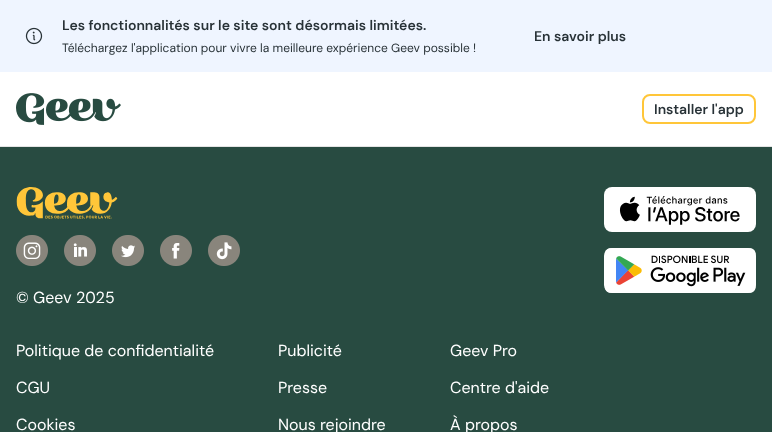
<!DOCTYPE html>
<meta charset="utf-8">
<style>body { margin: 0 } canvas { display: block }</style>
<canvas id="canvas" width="772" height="432"></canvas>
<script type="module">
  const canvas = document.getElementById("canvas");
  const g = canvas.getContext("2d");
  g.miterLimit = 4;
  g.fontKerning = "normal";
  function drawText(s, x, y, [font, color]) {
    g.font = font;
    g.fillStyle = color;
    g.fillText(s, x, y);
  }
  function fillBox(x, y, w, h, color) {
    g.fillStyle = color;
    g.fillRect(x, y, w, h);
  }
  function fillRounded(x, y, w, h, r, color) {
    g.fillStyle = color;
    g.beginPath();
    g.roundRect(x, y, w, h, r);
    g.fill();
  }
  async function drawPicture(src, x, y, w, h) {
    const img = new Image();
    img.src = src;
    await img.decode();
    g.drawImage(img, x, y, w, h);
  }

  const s1 = ["600 14px DM Sans", "#283237"];
  const s2 = ["12px 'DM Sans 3'", "#283237"];
  const s3 = ["16px DM Sans", "#FFFFFF"];
  const s4 = ["16px 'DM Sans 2'", "#FFFFFF"];

  fillBox(0, 0, 772, 432, "#284B41");
  fillBox(0, 72, 772, 74, "#FFFFFF");
  fillBox(0, 146, 772, 1, "#E4E4E4");
  fillBox(0, 0, 772, 72, "#EFF5FF");
  await drawPicture("pic1.png", 25, 27, 18, 18);
  drawText("Les fonctionnalités sur le site sont désormais limitées.", 62, 30, s1);
  drawText("Téléchargez l'application pour vivre la meilleure expérience Geev possible !", 62, 52, s2);
  drawText("En savoir plus", 534, 41, s1);
  await drawPicture("pic2.png", 16, 93, 105, 32);
  g.beginPath();
  g.roundRect(643, 95, 112, 28, 7);
  g.strokeStyle = "#FFC639";
  g.lineWidth = 2;
  g.stroke();
  drawText("Installer l'app", 654, 114, s1);
  fillRounded(604, 187, 152, 45, 8, "#FFFFFF");
  await drawPicture("pic3.png", 619, 196, 121, 29);
  fillRounded(604, 248, 152, 45, 8, "#FFFFFF");
  await drawPicture("pic4.png", 605, 248, 151, 45);
  await drawPicture("pic5.png", 16, 187, 102, 32);
  await drawPicture("pic6.png", 16, 235, 32, 31);
  await drawPicture("pic7.png", 64, 235, 32, 31);
  await drawPicture("pic8.png", 112, 235, 32, 31);
  await drawPicture("pic9.png", 160, 235, 32, 31);
  await drawPicture("pic10.png", 208, 235, 32, 31);
  drawText("© Geev 2025", 16, 303, s3);
  drawText("Politique de confidentialité", 16, 356, s4);
  drawText("CGU", 16, 393, s4);
  drawText("Cookies", 16, 430, s4);
  drawText("Publicité", 278, 356, s4);
  drawText("Presse", 278, 393, s4);
  drawText("Nous rejoindre", 278, 430, s4);
  drawText("Geev Pro", 450, 356, s4);
  drawText("Centre d'aide", 450, 393, s4);
  drawText("À propos", 450, 430, s4);
</script>
